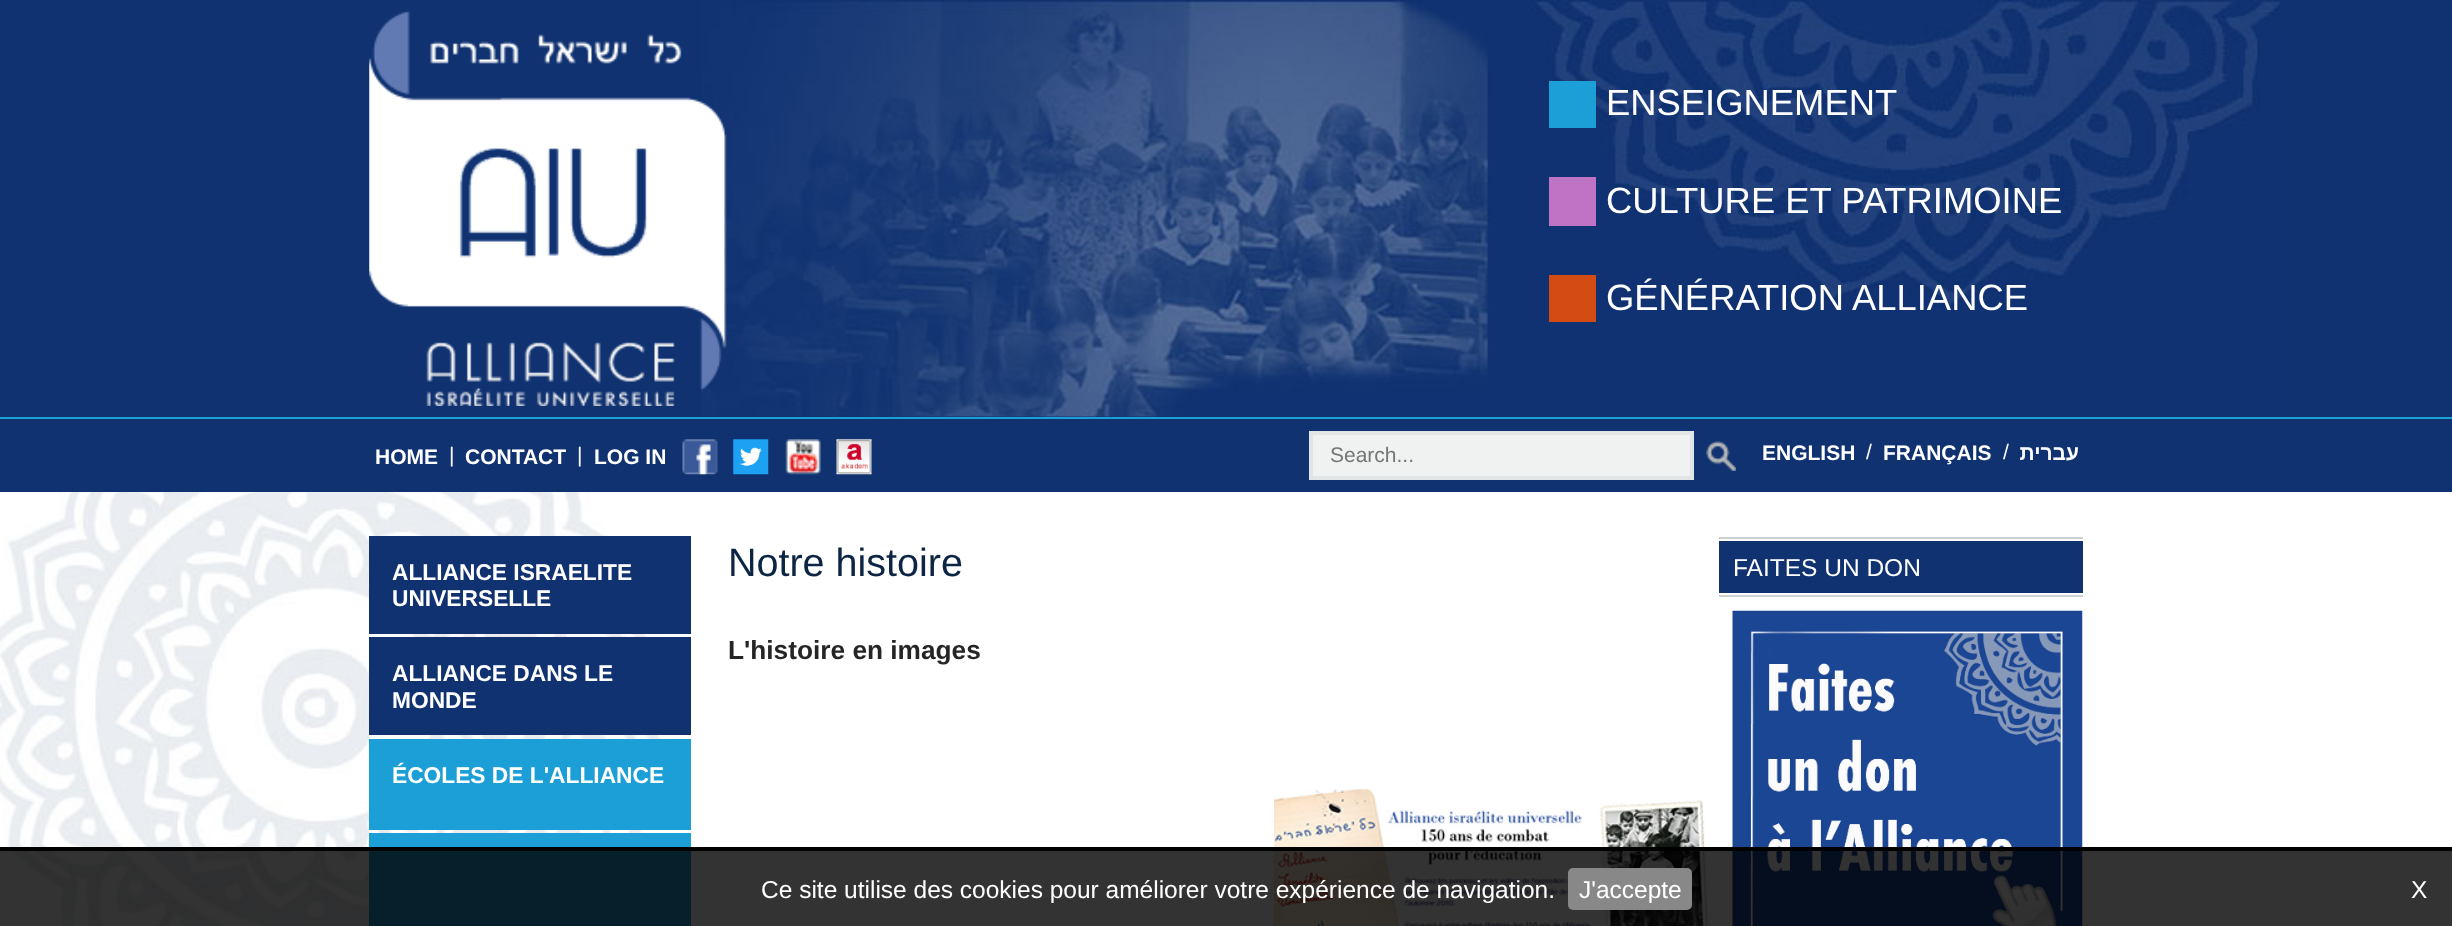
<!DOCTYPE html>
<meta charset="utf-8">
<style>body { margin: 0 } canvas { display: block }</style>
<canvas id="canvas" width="2452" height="926"></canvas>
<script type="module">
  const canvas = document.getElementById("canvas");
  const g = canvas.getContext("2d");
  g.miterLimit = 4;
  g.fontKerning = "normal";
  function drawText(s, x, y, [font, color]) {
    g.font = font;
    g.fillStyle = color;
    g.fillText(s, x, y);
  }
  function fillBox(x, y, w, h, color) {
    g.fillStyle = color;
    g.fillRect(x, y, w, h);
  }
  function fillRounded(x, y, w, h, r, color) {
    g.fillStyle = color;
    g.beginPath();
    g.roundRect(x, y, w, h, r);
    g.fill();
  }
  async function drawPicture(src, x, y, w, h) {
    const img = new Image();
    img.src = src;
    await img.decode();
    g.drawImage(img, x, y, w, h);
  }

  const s1 = ["36.4px Liberation Sans", "#FFFFFF"];
  const s2 = ["bold 21px Liberation Sans", "#FFFFFF"];
  const s3 = ["21px Liberation Sans", "#FFFFFF"];
  const s4 = ["21px Liberation Sans", "#757575"];
  const s5 = ["bold 22.75px Liberation Sans", "#FFFFFF"];
  const s6 = ["39.5px Liberation Sans", "#0D2544"];
  const s7 = ["bold 26.25px Liberation Sans", "#252525"];
  const s8 = ["24.5px Liberation Sans", "#FFFFFF"];

  fillBox(0, 0, 2452, 926, "#FFFFFF");
  await drawPicture("pic1.png", 0, 492, 674, 434);
  fillBox(0, 0, 2452, 492, "#103271");
  await drawPicture("pic2.png", 701, 0, 1579, 417);
  await drawPicture("pic3.png", 369, 10, 358, 396);
  fillBox(1549, 81, 47, 47, "#1C9FD6");
  drawText("ENSEIGNEMENT", 1606, 115, s1);
  fillBox(1549, 177, 47, 49, "#BF73C4");
  drawText("CULTURE ET PATRIMOINE", 1606, 213, s1);
  fillBox(1549, 275, 47, 47, "#D54B14");
  drawText("GÉNÉRATION ALLIANCE", 1606, 310, s1);
  fillBox(0, 417, 2452, 2, "#1C9FD6");
  drawText("HOME", 375, 464, s2);
  drawText("|", 449, 462, s3);
  drawText("CONTACT", 465, 464, s2);
  drawText("|", 577, 462, s3);
  drawText("LOG IN", 594, 464, s2);
  await drawPicture("pic4.png", 682, 439, 36, 36);
  await drawPicture("pic5.png", 733, 439, 36, 36);
  await drawPicture("pic6.png", 785, 439, 36, 36);
  await drawPicture("pic7.png", 836, 439, 36, 36);
  g.fillStyle = "#F0F2F2";
  g.beginPath();
  g.rect(1311, 433, 381, 45);
  g.fill();
  g.strokeStyle = "#E1E5E6";
  g.lineWidth = 4;
  g.stroke();
  drawText("Search...", 1330, 462, s4);
  await drawPicture("pic8.png", 1706, 441, 30, 30);
  drawText("ENGLISH", 1762, 460, s2);
  drawText("/", 1866, 459, s3);
  drawText("FRANÇAIS", 1883, 460, s2);
  drawText("/", 2003, 459, s3);
  g.direction = "rtl";
  drawText("עברית", 2079, 460, s2);
  fillBox(369, 536, 322, 98, "#103271");
  g.direction = "ltr";
  drawText("ALLIANCE ISRAELITE", 392, 580, s5);
  drawText("UNIVERSELLE", 392, 606, s5);
  fillBox(369, 637, 322, 98, "#103271");
  drawText("ALLIANCE DANS LE", 392, 681, s5);
  drawText("MONDE", 392, 708, s5);
  fillBox(369, 739, 322, 91, "#1C9FD6");
  drawText("ÉCOLES DE L'ALLIANCE", 392, 783, s5);
  fillBox(369, 833, 322, 93, "#1C9FD6");
  drawText("Notre histoire", 728, 576, s6);
  drawText("L'histoire en images", 728, 659, s7);
  await drawPicture("pic9.png", 1274, 789, 434, 137);
  fillBox(1719, 541, 364, 52, "#103271");
  fillBox(1719, 537, 364, 2, "#CECFCF");
  fillBox(1719, 595, 364, 2, "#CECFCF");
  drawText("FAITES UN DON", 1733, 576, s8);
  await drawPicture("pic10.png", 1732, 610, 351, 316);
  fillBox(0, 851, 2452, 75, "rgba(0, 0, 0, 0.8)");
  fillBox(0, 847, 2452, 4, "#000000");
  drawText("Ce site utilise des cookies pour améliorer votre expérience de navigation.", 761, 898, s8);
  fillRounded(1568, 868, 124, 42, 5, "#888888");
  drawText("J'accepte", 1579, 898, s8);
  drawText("X", 2411, 898, s8);
</script>
